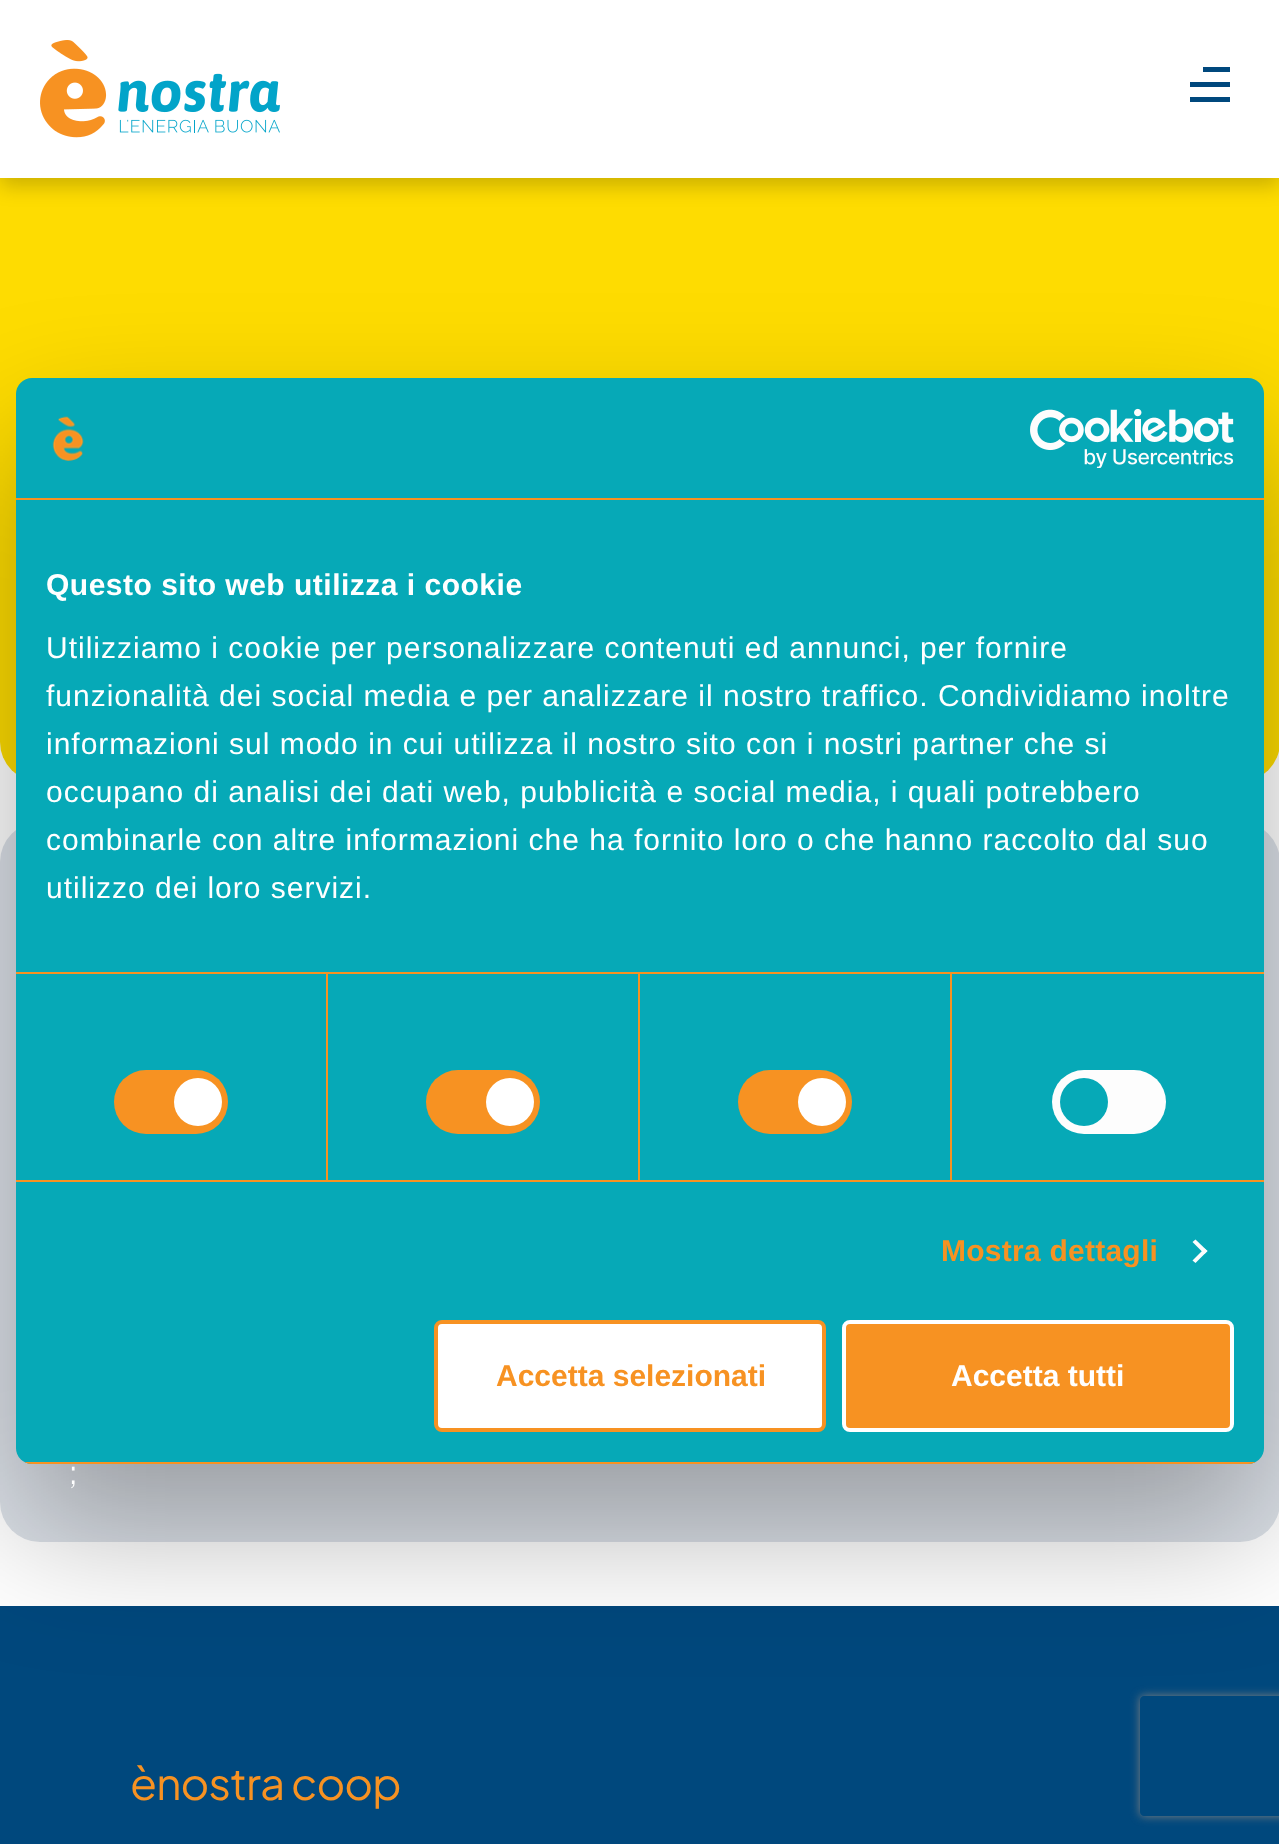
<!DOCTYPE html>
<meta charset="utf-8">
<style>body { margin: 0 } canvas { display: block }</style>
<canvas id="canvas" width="1279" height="1844"></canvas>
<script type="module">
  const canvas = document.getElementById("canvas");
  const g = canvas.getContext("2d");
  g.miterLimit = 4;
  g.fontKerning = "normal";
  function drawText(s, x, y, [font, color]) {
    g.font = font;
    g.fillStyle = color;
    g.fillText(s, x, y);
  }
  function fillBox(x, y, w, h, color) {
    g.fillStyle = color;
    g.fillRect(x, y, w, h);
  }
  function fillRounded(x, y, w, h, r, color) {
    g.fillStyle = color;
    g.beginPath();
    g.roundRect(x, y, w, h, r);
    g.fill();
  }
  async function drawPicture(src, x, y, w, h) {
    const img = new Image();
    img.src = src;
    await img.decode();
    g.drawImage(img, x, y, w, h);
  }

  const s1 = ["bold 30px Liberation Sans", "#FFFFFF"];
  const s2 = ["30px Liberation Sans", "#FFFFFF"];
  const s3 = ["bold 30px Liberation Sans", "#F79222"];
  const s4 = ["32px Plus Jakarta Sans", "#FFFFFF"];
  const s5 = ["44px Plus Jakarta Sans", "#F79222"];

  fillBox(0, 0, 1279, 1844, "#FFFFFF");
  fillRounded(0, 62, 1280, 720, 40, "#FEDC01");
  g.fillStyle = "rgba(0, 0, 0, 0.2)";
  g.filter = "blur(10px)";
  g.beginPath();
  g.rect(0, 8, 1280, 178);
  g.fill();
  g.filter = "none";
  fillBox(0, 0, 1279, 178, "#FFFFFF");
  await drawPicture("pic1.png", 40, 40, 240, 98);
  fillBox(1190, 97, 40, 5, "#00487D");
  fillBox(1190, 82, 40, 5, "#00487D");
  fillBox(1203, 67, 27, 5, "#00487D");
  fillRounded(0, 822, 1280, 720, 40, "#DCE1E8");
  fillBox(0, 1606, 1279, 238, "#00487D");
  g.fillStyle = "rgba(0, 0, 0, 0.3)";
  g.filter = "blur(68px)";
  g.beginPath();
  g.roundRect(16, 442, 1248, 1086, 16);
  g.fill();
  g.filter = "none";
  fillRounded(16, 378, 1248, 1086, 16, "#06A9B7");
  fillBox(16, 498, 1248, 2, "#F79222");
  await drawPicture("pic2.png", 52, 416, 32, 45);
  await drawPicture("pic3.png", 1030, 408, 204, 60);
  fillBox(16, 972, 1248, 2, "#F79222");
  g.letterSpacing = "0.5px";
  drawText("Questo sito web utilizza i cookie", 46, 595, s1);
  g.letterSpacing = "1px";
  drawText("Utilizziamo i cookie per personalizzare contenuti ed annunci, per fornire", 46, 658, s2);
  drawText("funzionalità dei social media e per analizzare il nostro traffico. Condividiamo inoltre", 46, 706, s2);
  drawText("informazioni sul modo in cui utilizza il nostro sito con i nostri partner che si", 46, 754, s2);
  drawText("occupano di analisi dei dati web, pubblicità e social media, i quali potrebbero", 46, 802, s2);
  drawText("combinarle con altre informazioni che ha fornito loro o che hanno raccolto dal suo", 46, 850, s2);
  drawText("utilizzo dei loro servizi.", 46, 898, s2);
  fillBox(16, 1180, 1248, 2, "#F79222");
  fillBox(326, 974, 2, 206, "#F79222");
  fillRounded(114, 1070, 114, 64, 32, "#F79222");
  g.fillStyle = "#FFFFFF";
  g.beginPath();
  g.arc(198, 1102, 24, 0, Math.PI * 2);
  g.fill();
  fillBox(638, 974, 2, 206, "#F79222");
  fillRounded(426, 1070, 114, 64, 32, "#F79222");
  g.fillStyle = "#FFFFFF";
  g.beginPath();
  g.arc(510, 1102, 24, 0, Math.PI * 2);
  g.fill();
  fillBox(950, 974, 2, 206, "#F79222");
  fillRounded(738, 1070, 114, 64, 32, "#F79222");
  g.fillStyle = "#FFFFFF";
  g.beginPath();
  g.arc(822, 1102, 24, 0, Math.PI * 2);
  g.fill();
  fillRounded(1052, 1070, 114, 64, 32, "#FDFDFD");
  g.fillStyle = "#06A9B7";
  g.beginPath();
  g.arc(1084, 1102, 24, 0, Math.PI * 2);
  g.fill();
  g.letterSpacing = "0.25px";
  drawText("Mostra dettagli", 941, 1261, s3);
  g.fillStyle = "#FDFDFD";
  g.beginPath();
  g.moveTo(1195.5, 1239.5);
  g.lineTo(1207.5, 1251);
  g.lineTo(1204.5, 1254);
  g.lineTo(1192.5, 1242);
  g.closePath();
  g.fill();
  g.beginPath();
  g.moveTo(1204.5, 1248.5);
  g.lineTo(1207.5, 1251);
  g.lineTo(1195.5, 1263);
  g.lineTo(1192.5, 1260.5);
  g.closePath();
  g.fill();
  g.save();
  g.beginPath();
  g.roundRect(16, 378, 1248, 1086, 16);
  g.clip();
  fillBox(16, 1462, 1248, 2, "#F79222");
  g.restore();
  g.fillStyle = "#FFFFFF";
  g.beginPath();
  g.roundRect(436, 1322, 388, 108, 6);
  g.fill();
  g.strokeStyle = "#F79222";
  g.lineWidth = 4;
  g.stroke();
  g.letterSpacing = "0px";
  drawText("Accetta selezionati", 496, 1386, s3);
  g.beginPath();
  g.roundRect(844, 1322, 388, 108, 6);
  g.fill();
  g.strokeStyle = "#FFFFFF";
  g.stroke();
  drawText("Accetta tutti", 951, 1386, s1);
  drawText(";", 68, 1484, s4);
  g.letterSpacing = "-0.9px";
  drawText("ènostra coop", 130, 1800, s5);
  g.save();
  g.beginPath();
  g.moveTo(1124, 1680);
  g.lineTo(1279, 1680);
  g.lineTo(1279, 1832);
  g.lineTo(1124, 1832);
  g.closePath();
  g.moveTo(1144, 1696);
  g.lineTo(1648, 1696);
  g.bezierCurveTo(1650, 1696, 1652, 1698, 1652, 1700);
  g.lineTo(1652, 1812);
  g.bezierCurveTo(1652, 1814, 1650, 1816, 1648, 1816);
  g.lineTo(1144, 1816);
  g.bezierCurveTo(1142, 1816, 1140, 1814, 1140, 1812);
  g.lineTo(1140, 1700);
  g.bezierCurveTo(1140, 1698, 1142, 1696, 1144, 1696);
  g.closePath();
  g.clip("evenodd");
  g.fillStyle = "#808080";
  g.filter = "blur(5px)";
  g.beginPath();
  g.roundRect(1140, 1696, 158, 120, 4);
  g.fill();
  g.filter = "none";
  g.restore();
</script>
